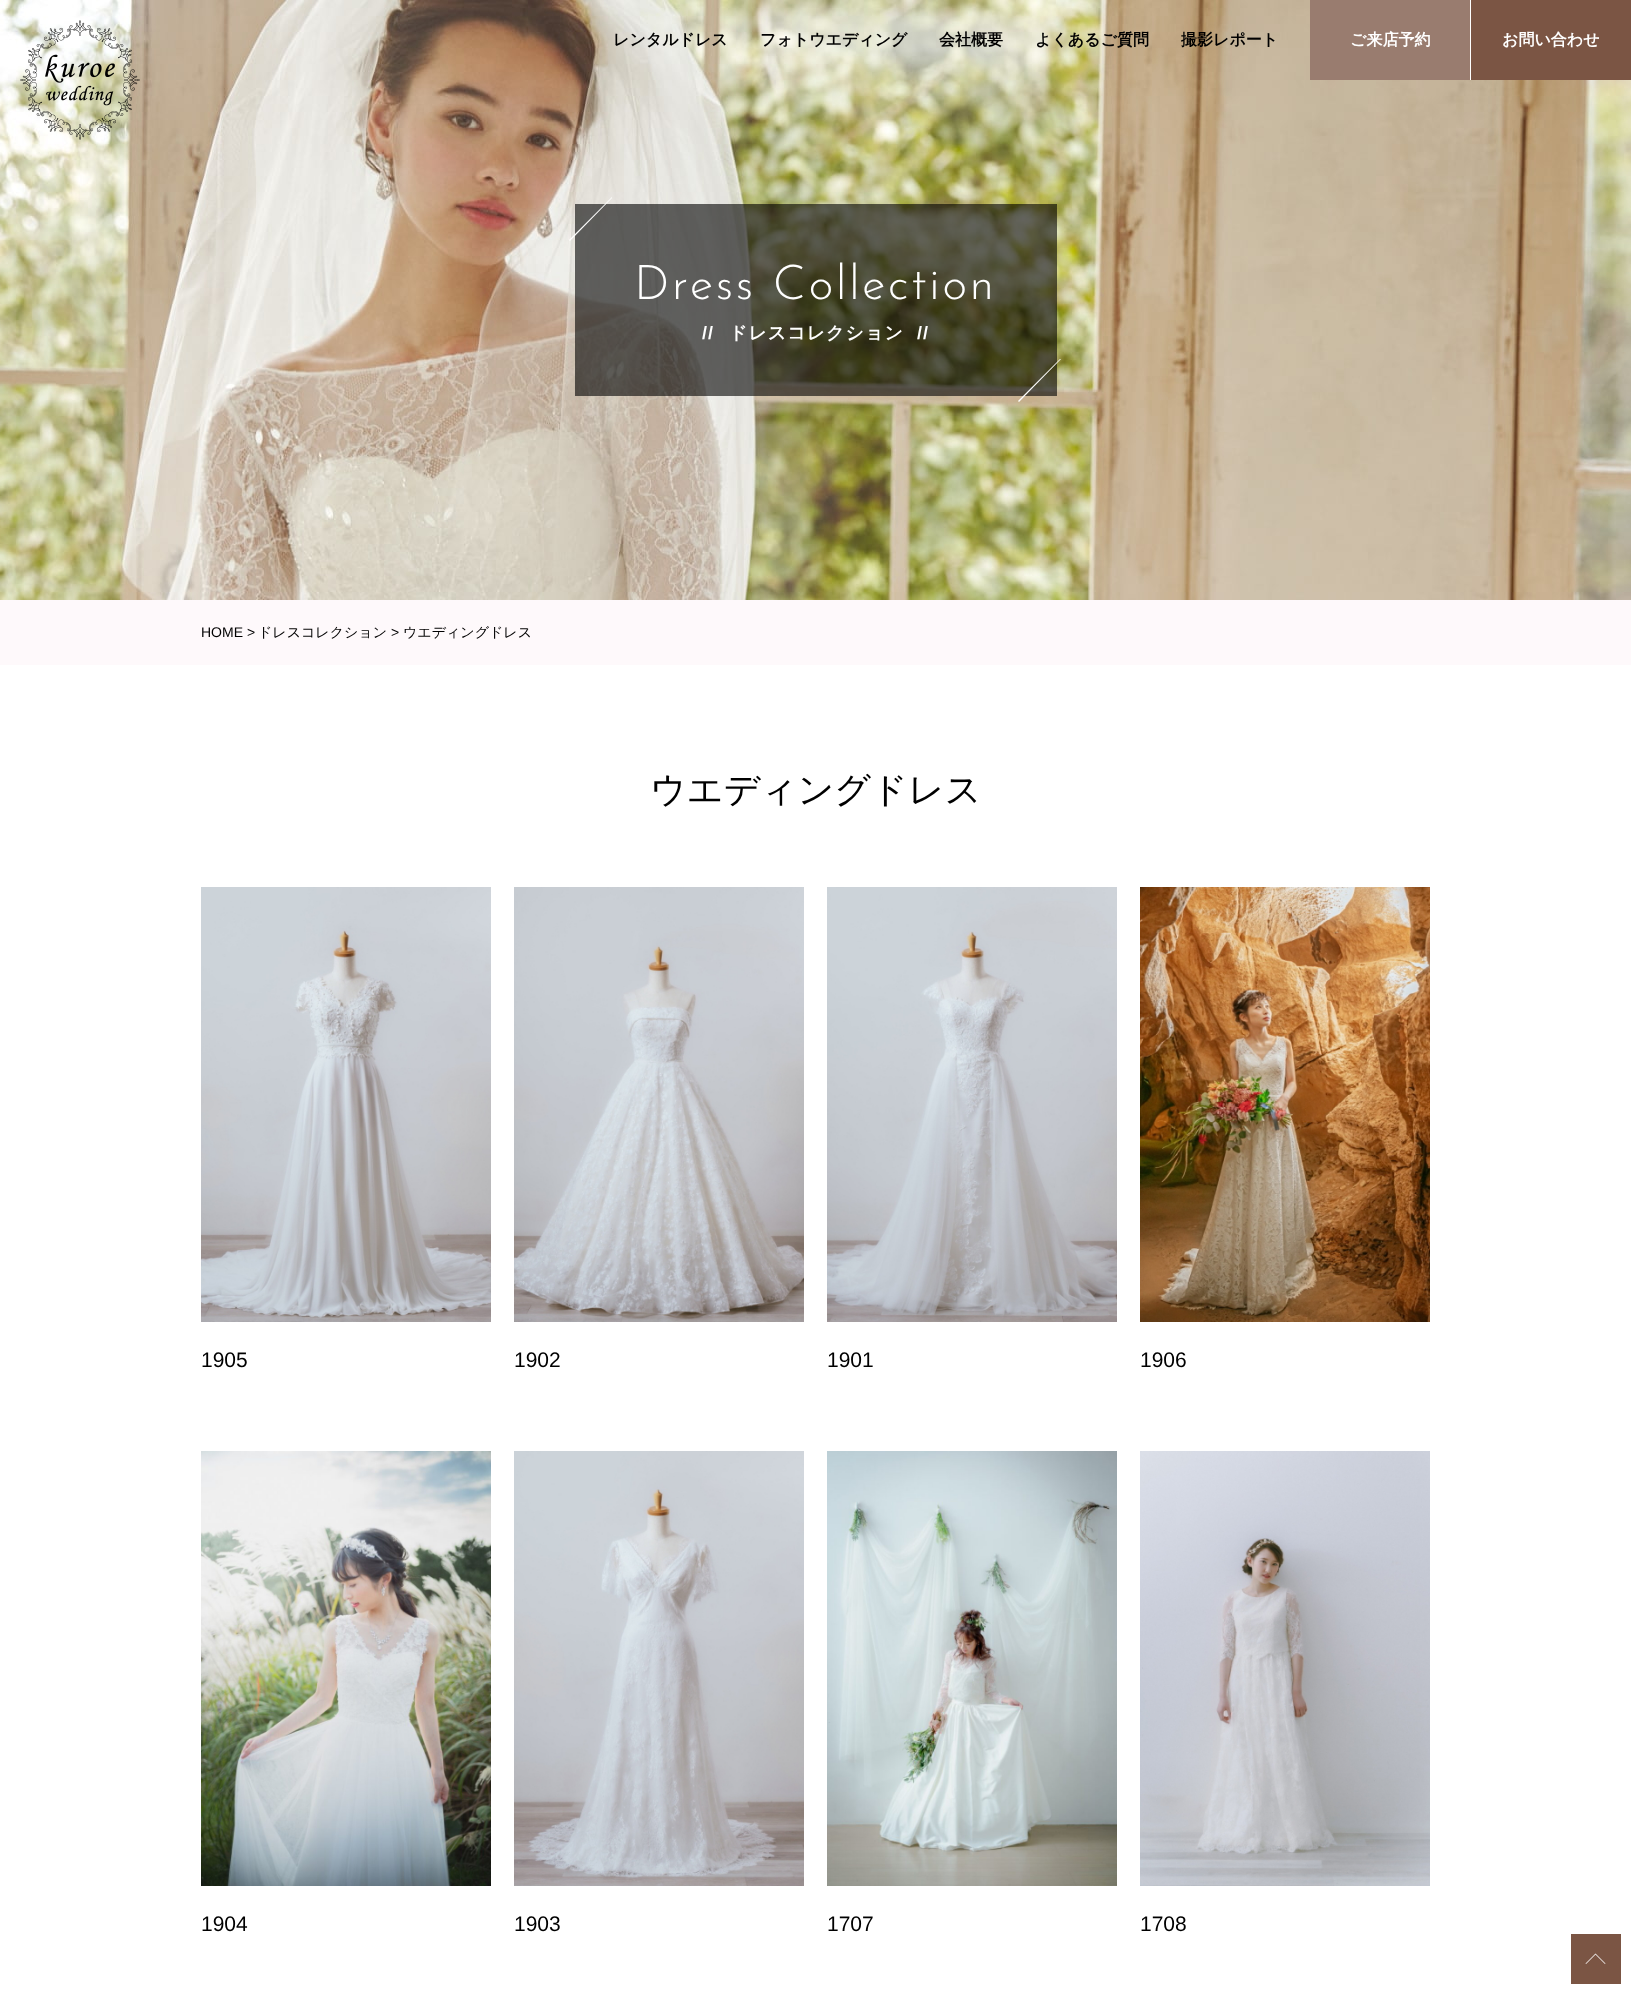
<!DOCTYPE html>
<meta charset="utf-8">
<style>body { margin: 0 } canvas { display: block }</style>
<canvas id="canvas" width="1631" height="1994"></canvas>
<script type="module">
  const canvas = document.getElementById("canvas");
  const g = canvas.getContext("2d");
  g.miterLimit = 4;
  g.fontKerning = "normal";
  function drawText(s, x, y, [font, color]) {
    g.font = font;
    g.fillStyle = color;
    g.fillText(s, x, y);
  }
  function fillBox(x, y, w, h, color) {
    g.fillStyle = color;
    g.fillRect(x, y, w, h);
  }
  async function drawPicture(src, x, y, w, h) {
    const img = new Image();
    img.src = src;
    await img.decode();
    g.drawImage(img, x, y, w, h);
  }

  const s1 = ["bold 16px WenQuanYi Zen Hei", "#000000"];
  const s2 = ["bold 16px WenQuanYi Zen Hei", "#FFFFFF"];
  const s3 = ["300 48px Josefin Sans", "#FFFFFF"];
  const s4 = ["bold 18px Liberation Sans", "#FFFFFF"];
  const s5 = ["bold 18px WenQuanYi Zen Hei", "#FFFFFF"];
  const s6 = ["14px Liberation Sans", "#000000"];
  const s7 = ["500 14px WenQuanYi Zen Hei", "#000000"];
  const s8 = ["500 36px WenQuanYi Zen Hei", "#000000"];
  const s9 = ["21px Liberation Sans", "#000000"];

  fillBox(0, 0, 1631, 1994, "#FFFFFF");
  await drawPicture("pic2.png", 0, 0, 1631, 600);
  await drawPicture("pic1.png", 20, 20, 120, 120);
  drawText("レンタルドレス", 613, 45, s1);
  drawText("フォトウエディング", 760, 45, s1);
  drawText("会社概要", 939, 45, s1);
  drawText("よくあるご質問", 1035, 45, s1);
  drawText("撮影レポート", 1181, 45, s1);
  fillBox(1470, 0, 1, 80, "#FFFFFF");
  fillBox(1310, 0, 160, 80, "#997C6F");
  drawText("ご来店予約", 1350, 45, s2);
  fillBox(1471, 0, 160, 80, "#7B5544");
  drawText("お問い合わせ", 1502, 45, s2);
  fillBox(575, 204, 482, 192, "rgba(0, 0, 0, 0.6)");
  g.fillStyle = "#FFFFFF";
  g.beginPath();
  g.moveTo(569, 240);
  g.lineTo(612, 197);
  g.lineTo(612, 198);
  g.lineTo(570, 241);
  g.closePath();
  g.fill();
  g.letterSpacing = "2.4px";
  drawText("Dress Collection", 634, 299, s3);
  g.letterSpacing = "1px";
  drawText("//", 702, 339, s4);
  drawText("ドレスコレクション", 729, 339, s5);
  drawText("//", 917, 339, s4);
  g.beginPath();
  g.moveTo(1018, 401);
  g.lineTo(1060, 359);
  g.lineTo(1061, 359);
  g.lineTo(1019, 402);
  g.closePath();
  g.fill();
  fillBox(0, 600, 1631, 65, "#FEF9FB");
  g.letterSpacing = "0px";
  drawText("HOME >", 201, 637, s6);
  drawText("ドレスコレクション", 258, 637, s7);
  drawText(">", 391, 637, s6);
  drawText("ウエディングドレス", 403, 637, s7);
  drawText("ウエディングドレス", 650, 802, s8);
  await drawPicture("pic3.png", 201, 887, 290, 435);
  drawText("1905", 201, 1367, s9);
  await drawPicture("pic4.png", 514, 887, 290, 435);
  drawText("1902", 514, 1367, s9);
  await drawPicture("pic5.png", 827, 887, 290, 435);
  drawText("1901", 827, 1367, s9);
  await drawPicture("pic6.png", 1140, 887, 290, 435);
  drawText("1906", 1140, 1367, s9);
  await drawPicture("pic7.png", 201, 1451, 290, 435);
  drawText("1904", 201, 1931, s9);
  await drawPicture("pic8.png", 514, 1451, 290, 435);
  drawText("1903", 514, 1931, s9);
  await drawPicture("pic9.png", 827, 1451, 290, 435);
  drawText("1707", 827, 1931, s9);
  await drawPicture("pic10.png", 1140, 1451, 290, 435);
  drawText("1708", 1140, 1931, s9);
  fillBox(1571, 1934, 50, 50, "#7B5544");
  g.fillStyle = "#FFFFFF";
  g.beginPath();
  g.moveTo(1605, 1964);
  g.lineTo(1595.5, 1954.5);
  g.lineTo(1586, 1964);
  g.lineTo(1585.5, 1963.5);
  g.lineTo(1595.5, 1953.5);
  g.lineTo(1605.5, 1963.5);
  g.closePath();
  g.fill();
</script>
